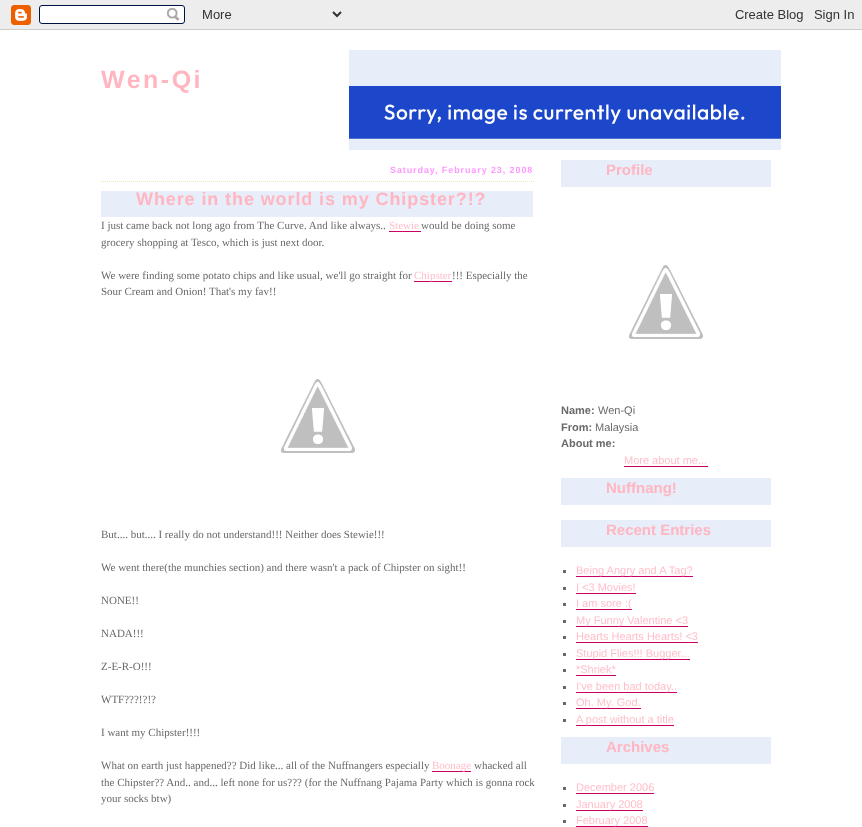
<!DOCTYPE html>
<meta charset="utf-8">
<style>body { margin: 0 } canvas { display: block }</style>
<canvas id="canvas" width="862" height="827"></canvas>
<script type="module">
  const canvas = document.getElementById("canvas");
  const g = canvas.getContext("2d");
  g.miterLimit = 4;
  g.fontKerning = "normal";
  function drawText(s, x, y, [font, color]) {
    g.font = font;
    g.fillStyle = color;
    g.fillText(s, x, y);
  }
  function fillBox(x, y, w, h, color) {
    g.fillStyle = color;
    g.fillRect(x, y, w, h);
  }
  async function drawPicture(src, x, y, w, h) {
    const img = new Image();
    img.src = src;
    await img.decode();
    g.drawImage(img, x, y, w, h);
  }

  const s1 = ["bold 25px Liberation Sans", "#FFB6C1"];
  const s2 = ["bold 9px Liberation Sans", "#FF99FF"];
  const s3 = ["bold 18px Liberation Sans", "#FFB6C1"];
  const s4 = ["11px Liberation Serif", "#696969"];
  const s5 = ["11px Liberation Serif", "#FFC0CB"];
  const s6 = ["bold 15px Liberation Sans", "#FFB6C1"];
  const s7 = ["bold 11px Liberation Sans", "#696969"];
  const s8 = ["11px Liberation Sans", "#696969"];
  const s9 = ["11px Liberation Sans", "#FFC0CB"];

  fillBox(0, 0, 862, 827, "#FFFFFF");
  await drawPicture("pic1.png", 0, 0, 862, 30);
  await drawPicture("pic2.png", 349, 50, 432, 100);
  g.letterSpacing = "2.5px";
  drawText("Wen-Qi", 101, 88, s1);
  g.beginPath();
  g.moveTo(101, 181.5);
  g.lineTo(535, 181.5);
  g.strokeStyle = "#E9E6B4";
  g.setLineDash([1, 1]);
  g.stroke();
  g.letterSpacing = "0.9px";
  drawText("Saturday, February 23, 2008", 390, 173, s2);
  fillBox(101, 191, 432, 26, "#E8EDFA");
  drawText("Where in the world is my Chipster?!?", 136, 205, s3);
  g.letterSpacing = "0px";
  drawText("I just came back not long ago from The Curve. And like always..", 101, 229, s4);
  drawText("Stewie", 389, 229, s5);
  fillBox(389, 231, 32, 1, "#CC0066");
  drawText("would be doing some", 421, 229, s4);
  drawText("grocery shopping at Tesco, which is just next door.", 101, 246, s4);
  drawText("We were finding some potato chips and like usual, we'll go straight for", 101, 279, s4);
  fillBox(414, 281, 38, 1, "#CC0066");
  drawText("Chipster", 414, 279, s5);
  drawText("!!! Especially the", 452, 279, s4);
  drawText("Sour Cream and Onion! That's my fav!!", 101, 295, s4);
  await drawPicture("pic3.png", 281, 379, 74, 74);
  drawText("But.... but.... I really do not understand!!! Neither does Stewie!!!", 101, 538, s4);
  drawText("We went there(the munchies section) and there wasn't a pack of Chipster on sight!!", 101, 571, s4);
  drawText("NONE!!", 101, 604, s4);
  drawText("NADA!!!", 101, 637, s4);
  drawText("Z-E-R-O!!!", 101, 670, s4);
  drawText("WTF???!?!?", 101, 703, s4);
  drawText("I want my Chipster!!!!", 101, 736, s4);
  drawText("What on earth just happened?? Did like... all of the Nuffnangers especially", 101, 769, s4);
  fillBox(432, 771, 39, 1, "#CC0066");
  drawText("Boonage", 432, 769, s5);
  drawText("whacked all", 474, 769, s4);
  drawText("the Chipster?? And.. and... left none for us??? (for the Nuffnang Pajama Party which is gonna rock", 101, 786, s4);
  drawText("your socks btw)", 101, 802, s4);
  fillBox(561, 160, 210, 27, "#E8EDFA");
  drawText("Profile", 606, 175, s6);
  await drawPicture("pic3.png", 629, 265, 74, 74);
  drawText("Name:", 561, 414, s7);
  drawText("Wen-Qi", 598, 414, s8);
  drawText("From:", 561, 431, s7);
  drawText("Malaysia", 595, 431, s8);
  drawText("About me:", 561, 447, s7);
  drawText("More about me...", 624, 464, s9);
  fillBox(624, 466, 84, 1, "#CC0066");
  fillBox(561, 478, 210, 27, "#E8EDFA");
  drawText("Nuffnang!", 606, 493, s6);
  fillBox(561, 520, 210, 27, "#E8EDFA");
  drawText("Recent Entries", 606, 535, s6);
  fillBox(563, 570, 3, 3, "#696969");
  fillBox(576, 576, 117, 1, "#CC0066");
  drawText("Being Angry and A Tag?", 576, 574, s9);
  fillBox(563, 587, 3, 3, "#696969");
  drawText("I <3 Movies!", 576, 591, s9);
  fillBox(576, 593, 60, 1, "#CC0066");
  fillBox(563, 603, 3, 3, "#696969");
  fillBox(576, 609, 56, 1, "#CC0066");
  drawText("I am sore :(", 576, 607, s9);
  fillBox(563, 620, 3, 3, "#696969");
  fillBox(576, 626, 112, 1, "#CC0066");
  drawText("My Funny Valentine <3", 576, 624, s9);
  fillBox(563, 636, 3, 3, "#696969");
  drawText("Hearts Hearts Hearts! <3", 576, 640, s9);
  fillBox(576, 642, 122, 1, "#CC0066");
  fillBox(563, 653, 3, 3, "#696969");
  fillBox(576, 659, 114, 1, "#CC0066");
  drawText("Stupid Flies!!! Bugger...", 576, 657, s9);
  fillBox(563, 669, 3, 3, "#696969");
  drawText("*Shriek*", 576, 673, s9);
  fillBox(576, 675, 40, 1, "#CC0066");
  fillBox(563, 686, 3, 3, "#696969");
  fillBox(576, 692, 101, 1, "#CC0066");
  drawText("I've been bad today..", 576, 690, s9);
  fillBox(563, 702, 3, 3, "#696969");
  fillBox(576, 708, 65, 1, "#CC0066");
  drawText("Oh. My. God.", 576, 706, s9);
  fillBox(563, 719, 3, 3, "#696969");
  fillBox(576, 725, 98, 1, "#CC0066");
  drawText("A post without a title", 576, 723, s9);
  fillBox(561, 737, 210, 27, "#E8EDFA");
  drawText("Archives", 606, 752, s6);
  fillBox(563, 787, 3, 3, "#696969");
  drawText("December 2006", 576, 791, s9);
  fillBox(576, 793, 78, 1, "#CC0066");
  fillBox(563, 804, 3, 3, "#696969");
  fillBox(576, 810, 67, 1, "#CC0066");
  drawText("January 2008", 576, 808, s9);
  fillBox(563, 820, 3, 3, "#696969");
  fillBox(576, 826, 72, 1, "#CC0066");
  drawText("February 2008", 576, 824, s9);
</script>
